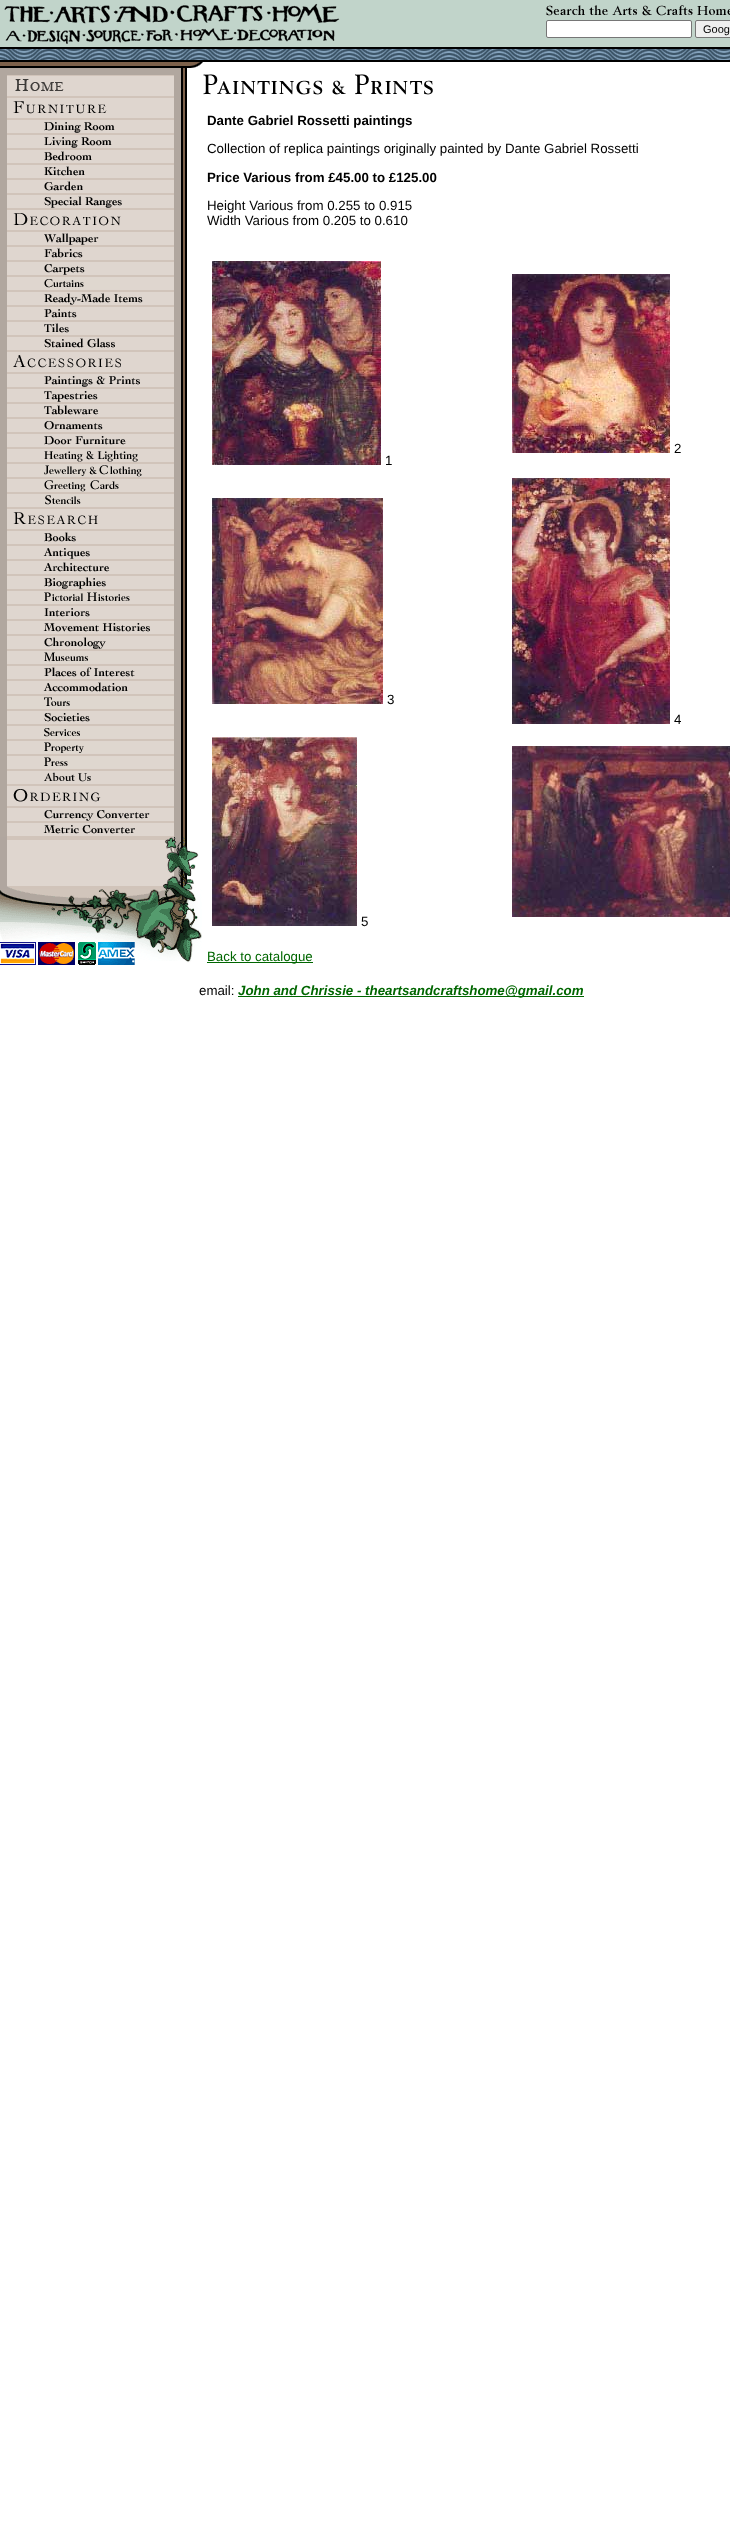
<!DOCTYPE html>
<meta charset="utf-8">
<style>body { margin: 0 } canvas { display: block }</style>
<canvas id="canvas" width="730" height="2535"></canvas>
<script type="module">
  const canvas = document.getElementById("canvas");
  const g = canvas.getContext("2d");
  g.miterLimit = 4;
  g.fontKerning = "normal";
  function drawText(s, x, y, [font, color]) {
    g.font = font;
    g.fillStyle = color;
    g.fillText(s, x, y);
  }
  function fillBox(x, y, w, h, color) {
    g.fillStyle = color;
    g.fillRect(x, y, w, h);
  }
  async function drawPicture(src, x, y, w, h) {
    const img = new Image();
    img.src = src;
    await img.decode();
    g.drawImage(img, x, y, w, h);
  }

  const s1 = ["11px Liberation Sans", "#000000"];
  const s2 = ["bold 13.3px Liberation Sans", "#000000"];
  const s3 = ["13.3px Liberation Sans", "#000000"];
  const s4 = ["13.3px Liberation Sans", "#006600"];
  const s5 = ["italic bold 13.3px Liberation Sans", "#006600"];

  fillBox(0, 0, 730, 2535, "#FFFFFF");
  fillBox(0, 0, 730, 47, "#C1D4CA");
  await drawPicture("pic1.png", 0, 47, 730, 15);
  await drawPicture("pic2.png", 4, 3, 336, 41);
  await drawPicture("pic3.png", 546, 5, 184, 11);
  g.fillStyle = "#FFFFFF";
  g.beginPath();
  g.roundRect(546.5, 20.5, 145, 17, 1.5);
  g.fill();
  g.strokeStyle = "#767676";
  g.stroke();
  g.fillStyle = "#EFEFEF";
  g.beginPath();
  g.roundRect(695.5, 20.5, 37, 17, 1.5);
  g.fill();
  g.stroke();
  drawText("Goog", 703, 33, s1);
  await drawPicture("pic4.png", 0, 62, 203, 13);
  await drawPicture("pic5.png", 0, 75, 181, 762);
  await drawPicture("pic6.png", 7, 76, 167, 20);
  await drawPicture("pic7.png", 7, 98, 167, 20);
  await drawPicture("pic8.png", 7, 120, 167, 13);
  await drawPicture("pic9.png", 7, 135, 167, 13);
  await drawPicture("pic10.png", 7, 150, 167, 13);
  await drawPicture("pic11.png", 7, 165, 167, 13);
  await drawPicture("pic12.png", 7, 180, 167, 13);
  await drawPicture("pic13.png", 7, 195, 167, 13);
  await drawPicture("pic14.png", 7, 210, 167, 20);
  await drawPicture("pic15.png", 7, 232, 167, 13);
  await drawPicture("pic16.png", 7, 247, 167, 13);
  await drawPicture("pic17.png", 7, 262, 167, 13);
  await drawPicture("pic18.png", 7, 277, 167, 13);
  await drawPicture("pic19.png", 7, 292, 167, 13);
  await drawPicture("pic20.png", 7, 307, 167, 13);
  await drawPicture("pic21.png", 7, 322, 167, 13);
  await drawPicture("pic22.png", 7, 337, 167, 13);
  await drawPicture("pic23.png", 7, 352, 167, 20);
  await drawPicture("pic24.png", 7, 374, 167, 13);
  await drawPicture("pic25.png", 7, 389, 167, 13);
  await drawPicture("pic26.png", 7, 404, 167, 13);
  await drawPicture("pic27.png", 7, 419, 167, 13);
  await drawPicture("pic28.png", 7, 434, 167, 13);
  await drawPicture("pic29.png", 7, 449, 167, 13);
  await drawPicture("pic30.png", 7, 464, 167, 13);
  await drawPicture("pic31.png", 7, 479, 167, 13);
  await drawPicture("pic32.png", 7, 494, 167, 13);
  await drawPicture("pic33.png", 7, 509, 167, 20);
  await drawPicture("pic34.png", 7, 531, 167, 13);
  await drawPicture("pic35.png", 7, 546, 167, 13);
  await drawPicture("pic36.png", 7, 561, 167, 13);
  await drawPicture("pic37.png", 7, 576, 167, 13);
  await drawPicture("pic38.png", 7, 591, 167, 13);
  await drawPicture("pic39.png", 7, 606, 167, 13);
  await drawPicture("pic40.png", 7, 621, 167, 13);
  await drawPicture("pic41.png", 7, 636, 167, 13);
  await drawPicture("pic42.png", 7, 651, 167, 13);
  await drawPicture("pic43.png", 7, 666, 167, 13);
  await drawPicture("pic44.png", 7, 681, 167, 13);
  await drawPicture("pic45.png", 7, 696, 167, 13);
  await drawPicture("pic46.png", 7, 711, 167, 13);
  await drawPicture("pic47.png", 7, 726, 167, 13);
  await drawPicture("pic48.png", 7, 741, 167, 13);
  await drawPicture("pic49.png", 7, 756, 167, 13);
  await drawPicture("pic50.png", 7, 771, 167, 13);
  await drawPicture("pic51.png", 7, 786, 167, 20);
  await drawPicture("pic52.png", 7, 808, 167, 13);
  await drawPicture("pic53.png", 7, 823, 167, 13);
  await drawPicture("pic54.png", 181, 75, 6, 762);
  await drawPicture("pic55.png", 0, 837, 199, 52);
  await drawPicture("pic56.png", 0, 889, 202, 76);
  await drawPicture("pic57.png", 203, 74, 230, 21);
  drawText("Dante Gabriel Rossetti paintings", 207, 125, s2);
  drawText("Collection of replica paintings originally painted by Dante Gabriel Rossetti", 207, 153, s3);
  drawText("Price Various from £45.00 to £125.00", 207, 182, s2);
  drawText("Height Various from 0.255 to 0.915", 207, 210, s3);
  drawText("Width Various from 0.205 to 0.610", 207, 225, s3);
  await drawPicture("pic58.png", 512, 274, 158, 179);
  drawText("2", 674, 453, s3);
  await drawPicture("pic59.png", 212, 261, 169, 204);
  drawText("1", 385, 465, s3);
  await drawPicture("pic60.png", 212, 498, 171, 206);
  drawText("3", 387, 704, s3);
  await drawPicture("pic61.png", 512, 478, 158, 246);
  drawText("4", 674, 724, s3);
  await drawPicture("pic62.png", 512, 746, 218, 171);
  await drawPicture("pic63.png", 212, 737, 145, 189);
  drawText("5", 361, 926, s3);
  fillBox(207, 962, 106, 1, "#006600");
  drawText("Back to catalogue", 207, 961, s4);
  drawText("email:", 199, 995, s3);
  fillBox(238, 996, 346, 1, "#006600");
  drawText("John and Chrissie - theartsandcraftshome@gmail.com", 238, 995, s5);
</script>
